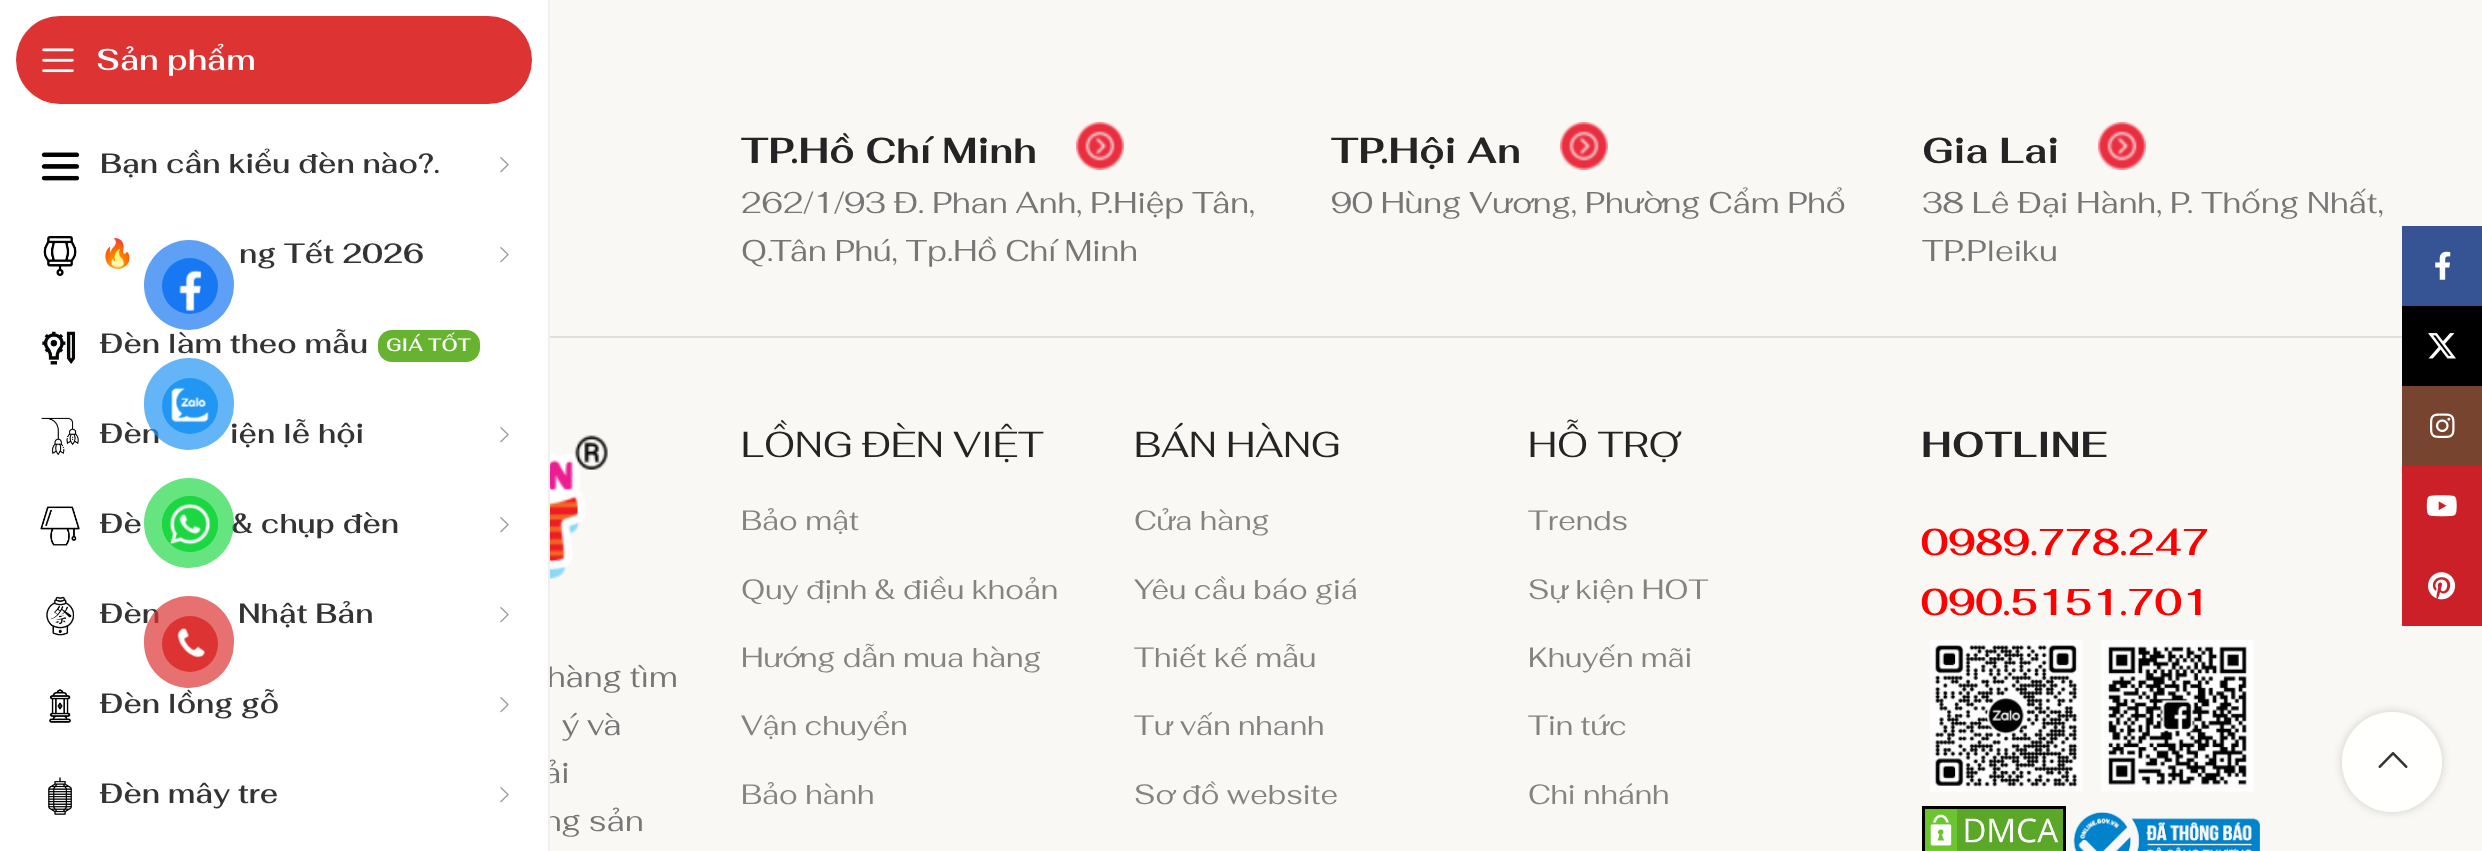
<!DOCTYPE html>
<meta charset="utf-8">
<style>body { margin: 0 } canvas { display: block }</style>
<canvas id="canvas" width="2482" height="851"></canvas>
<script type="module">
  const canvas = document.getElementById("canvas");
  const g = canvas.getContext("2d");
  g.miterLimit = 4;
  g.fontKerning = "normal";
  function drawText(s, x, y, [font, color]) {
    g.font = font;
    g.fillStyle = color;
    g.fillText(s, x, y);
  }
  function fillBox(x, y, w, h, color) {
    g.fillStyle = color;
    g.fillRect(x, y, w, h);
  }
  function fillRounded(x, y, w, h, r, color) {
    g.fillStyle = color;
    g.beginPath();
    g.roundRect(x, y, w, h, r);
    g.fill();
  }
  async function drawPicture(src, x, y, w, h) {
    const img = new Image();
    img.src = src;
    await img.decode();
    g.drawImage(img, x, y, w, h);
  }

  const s1 = ["30px Fahkwang", "#767676"];
  const s2 = ["600 30px Fahkwang", "#FFFFFF"];
  const s3 = ["600 28px Fahkwang", "#333333"];
  const s4 = ["bold 28px Noto Color Emoji", "#333333"];
  const s5 = ["600 18px Fahkwang", "#FFFFFF"];
  const s6 = ["bold 36px Fahkwang", "#242424"];
  const s7 = ["36px Fahkwang", "#242424"];
  const s8 = ["28px Fahkwang", "#838383"];
  const s9 = ["600 37.25px Fahkwang", "#FF0000"];

  fillBox(0, 0, 2482, 851, "#FAF8F5");
  drawText("ải", 543, 783, s1);
  drawText("ng sản", 543, 831, s1);
  fillBox(0, 0, 548, 851, "#FFFFFF");
  drawText("hàng tìm", 547, 687, s1);
  fillBox(548, 0, 2, 851, "#EFEFEF");
  fillRounded(16, 16, 516, 88, 44, "#DD3333");
  await drawPicture("pic1.png", 42, 48, 32, 25);
  drawText("Sản phẩm", 96, 70, s2);
  await drawPicture("pic2.png", 41, 152, 39, 29);
  drawText("Bạn cần kiểu đèn nào?.", 100, 173, s3);
  await drawPicture("pic3.png", 500, 157, 9, 16);
  await drawPicture("pic4.png", 43, 236, 34, 40);
  drawText("🔥", 100, 263, s4);
  drawText("ng Tết 2026", 239, 263, s3);
  await drawPicture("pic3.png", 500, 247, 9, 16);
  await drawPicture("pic5.png", 42, 331, 34, 34);
  drawText("Đèn làm theo mẫu", 100, 353, s3);
  fillRounded(378, 330, 102, 32, 14, "#65B32E");
  drawText("GIÁ TỐT", 386, 351, s5);
  await drawPicture("pic6.png", 41, 417, 38, 39);
  drawText("Đèn", 100, 443, s3);
  drawText("iện lễ hội", 230, 443, s3);
  await drawPicture("pic3.png", 500, 427, 9, 16);
  await drawPicture("pic7.png", 40, 506, 40, 40);
  drawText("Đè", 100, 533, s3);
  drawText("& chụp đèn", 231, 533, s3);
  await drawPicture("pic3.png", 500, 517, 9, 16);
  await drawPicture("pic8.png", 46, 596, 29, 40);
  drawText("Đèn", 100, 623, s3);
  drawText("Nhật Bản", 238, 623, s3);
  await drawPicture("pic3.png", 500, 607, 9, 16);
  await drawPicture("pic9.png", 49, 689, 22, 34);
  drawText("Đèn lồng gỗ", 100, 713, s3);
  await drawPicture("pic3.png", 500, 697, 9, 16);
  await drawPicture("pic10.png", 48, 777, 24, 38);
  drawText("Đèn mây tre", 100, 803, s3);
  await drawPicture("pic3.png", 500, 787, 9, 16);
  drawText("TP.Hồ Chí Minh", 741, 163, s6);
  await drawPicture("pic11.png", 1076, 122, 48, 48);
  drawText("262/1/93 Đ. Phan Anh, P.Hiệp Tân,", 741, 213, s1);
  drawText("Q.Tân Phú, Tp.Hồ Chí Minh", 741, 261, s1);
  drawText("TP.Hội An", 1331, 163, s6);
  await drawPicture("pic11.png", 1560, 122, 48, 48);
  drawText("90 Hùng Vương, Phường Cẩm Phổ", 1331, 213, s1);
  drawText("Gia Lai", 1922, 163, s6);
  await drawPicture("pic11.png", 2098, 122, 48, 48);
  drawText("38 Lê Đại Hành, P. Thống Nhất,", 1922, 213, s1);
  drawText("TP.Pleiku", 1922, 261, s1);
  fillBox(550, 336, 1852, 2, "#E1DFDD");
  drawText("LỒNG ĐÈN VIỆT", 741, 457, s7);
  drawText("Bảo mật", 741, 530, s8);
  drawText("Quy định & điều khoản", 741, 599, s8);
  drawText("Hướng dẫn mua hàng", 741, 667, s8);
  drawText("Vận chuyển", 741, 735, s8);
  drawText("Bảo hành", 741, 804, s8);
  drawText("BÁN HÀNG", 1134, 457, s7);
  drawText("Cửa hàng", 1134, 530, s8);
  drawText("Yêu cầu báo giá", 1134, 599, s8);
  drawText("Thiết kế mẫu", 1134, 667, s8);
  drawText("Tư vấn nhanh", 1134, 735, s8);
  drawText("Sơ đồ website", 1134, 804, s8);
  drawText("HỖ TRỢ", 1528, 457, s7);
  drawText("Trends", 1528, 530, s8);
  drawText("Sự kiện HOT", 1528, 599, s8);
  drawText("Khuyến mãi", 1528, 667, s8);
  drawText("Tin tức", 1528, 735, s8);
  drawText("Chi nhánh", 1528, 804, s8);
  drawText("HOTLINE", 1921, 457, s6);
  drawText("0989.778.247", 1921, 555, s9);
  drawText("090.5151.701", 1921, 615, s9);
  await drawPicture("pic12.png", 1930, 640, 324, 152);
  await drawPicture("pic13.png", 1922, 806, 144, 45);
  await drawPicture("pic14.png", 2073, 811, 187, 40);
  await drawPicture("pic15.png", 550, 435, 58, 144);
  drawText("ý và", 562, 735, s1);
  fillBox(2402, 226, 80, 80, "#365493");
  await drawPicture("pic16.png", 2435, 251, 16, 29);
  fillBox(2402, 306, 80, 80, "#000000");
  await drawPicture("pic17.png", 2428, 333, 28, 26);
  fillBox(2402, 386, 80, 80, "#774430");
  await drawPicture("pic18.png", 2430, 413, 25, 25);
  fillBox(2402, 466, 80, 160, "#CB2027");
  await drawPicture("pic19.png", 2426, 495, 31, 22);
  await drawPicture("pic20.png", 2428, 572, 28, 28);
  g.fillStyle = "rgba(24, 119, 242, 0.7)";
  g.beginPath();
  g.arc(189, 285, 45, 0, Math.PI * 2);
  g.fill();
  g.fillStyle = "#1877F2";
  g.beginPath();
  g.arc(190, 286, 28, 0, Math.PI * 2);
  g.fill();
  await drawPicture("pic21.png", 179, 270, 23, 42);
  fillRounded(144, 358, 90, 92, 45, "rgba(33, 150, 243, 0.7)");
  g.fillStyle = "#2196F3";
  g.beginPath();
  g.arc(190, 406, 28, 0, Math.PI * 2);
  g.fill();
  await drawPicture("pic22.png", 171, 387, 38, 36);
  g.fillStyle = "rgba(35, 217, 72, 0.7)";
  g.beginPath();
  g.arc(189, 523, 45, 0, Math.PI * 2);
  g.fill();
  g.fillStyle = "#1CD741";
  g.beginPath();
  g.arc(190, 524, 28, 0, Math.PI * 2);
  g.fill();
  await drawPicture("pic23.png", 162, 496, 56, 56);
  fillRounded(144, 596, 90, 92, 45, "rgba(221, 51, 51, 0.7)");
  g.fillStyle = "#DD3333";
  g.beginPath();
  g.arc(190, 644, 28, 0, Math.PI * 2);
  g.fill();
  await drawPicture("pic24.png", 177, 628, 28, 30);
  g.save();
  g.beginPath();
  g.moveTo(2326, 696);
  g.lineTo(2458, 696);
  g.lineTo(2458, 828);
  g.lineTo(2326, 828);
  g.closePath();
  g.moveTo(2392, 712);
  g.bezierCurveTo(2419.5, 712, 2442, 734.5, 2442, 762);
  g.bezierCurveTo(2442, 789.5, 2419.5, 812, 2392, 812);
  g.bezierCurveTo(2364.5, 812, 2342, 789.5, 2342, 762);
  g.bezierCurveTo(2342, 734.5, 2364.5, 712, 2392, 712);
  g.closePath();
  g.clip("evenodd");
  g.fillStyle = "rgba(0, 0, 0, 0.17)";
  g.filter = "blur(5px)";
  g.beginPath();
  g.roundRect(2342, 712, 100, 100, 50);
  g.fill();
  g.filter = "none";
  g.restore();
  g.fillStyle = "rgba(255, 255, 255, 0.9)";
  g.beginPath();
  g.arc(2392, 762, 50, 0, Math.PI * 2);
  g.fill();
  await drawPicture("pic25.png", 2378, 752, 30, 16);
</script>
